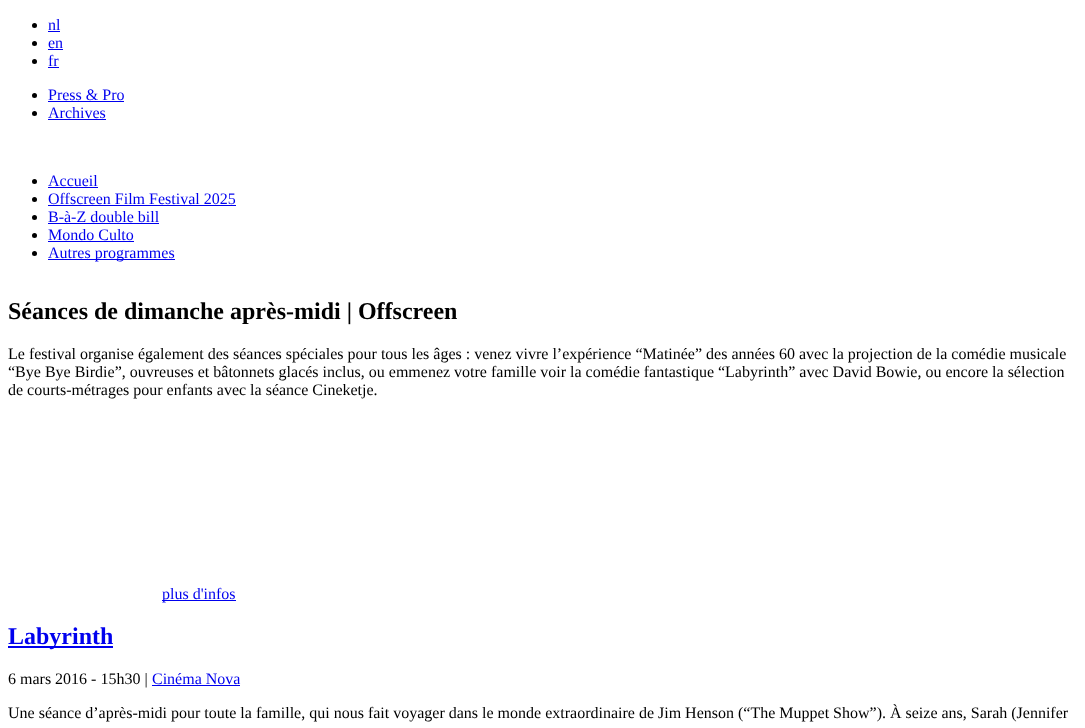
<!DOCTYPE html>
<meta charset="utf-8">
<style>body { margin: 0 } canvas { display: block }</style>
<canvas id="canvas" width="1085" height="728"></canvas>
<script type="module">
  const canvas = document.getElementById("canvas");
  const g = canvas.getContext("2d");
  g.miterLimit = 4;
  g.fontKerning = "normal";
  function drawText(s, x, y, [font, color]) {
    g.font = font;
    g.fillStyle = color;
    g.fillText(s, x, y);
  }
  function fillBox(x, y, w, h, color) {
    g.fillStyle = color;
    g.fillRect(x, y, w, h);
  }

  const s1 = ["16px Liberation Serif", "#0000EE"];
  const s2 = ["bold 24px Liberation Serif", "#000000"];
  const s3 = ["16px Liberation Serif", "#000000"];
  const s4 = ["bold 24px Liberation Serif", "#0000EE"];

  fillBox(0, 0, 1085, 728, "#FFFFFF");
  g.fillStyle = "#000000";
  g.beginPath();
  g.arc(34.5, 25.5, 2.5, 0, Math.PI * 2);
  g.fill();
  drawText("nl", 48, 30, s1);
  fillBox(48, 31, 12, 1, "#0000EE");
  g.fillStyle = "#000000";
  g.beginPath();
  g.arc(34.5, 43.5, 2.5, 0, Math.PI * 2);
  g.fill();
  drawText("en", 48, 48, s1);
  fillBox(48, 49, 15, 1, "#0000EE");
  g.fillStyle = "#000000";
  g.beginPath();
  g.arc(34.5, 61.5, 2.5, 0, Math.PI * 2);
  g.fill();
  drawText("fr", 48, 66, s1);
  fillBox(48, 67, 11, 1, "#0000EE");
  g.fillStyle = "#000000";
  g.beginPath();
  g.arc(34.5, 95.5, 2.5, 0, Math.PI * 2);
  g.fill();
  drawText("Press & Pro", 48, 100, s1);
  fillBox(48, 101, 76, 1, "#0000EE");
  g.fillStyle = "#000000";
  g.beginPath();
  g.arc(34.5, 113.5, 2.5, 0, Math.PI * 2);
  g.fill();
  drawText("Archives", 48, 118, s1);
  fillBox(48, 119, 58, 1, "#0000EE");
  g.fillStyle = "#000000";
  g.beginPath();
  g.arc(34.5, 181.5, 2.5, 0, Math.PI * 2);
  g.fill();
  drawText("Accueil", 48, 186, s1);
  fillBox(48, 187, 50, 1, "#0000EE");
  g.fillStyle = "#000000";
  g.beginPath();
  g.arc(34.5, 199.5, 2.5, 0, Math.PI * 2);
  g.fill();
  drawText("Offscreen Film Festival 2025", 48, 204, s1);
  fillBox(48, 205, 188, 1, "#0000EE");
  g.fillStyle = "#000000";
  g.beginPath();
  g.arc(34.5, 217.5, 2.5, 0, Math.PI * 2);
  g.fill();
  drawText("B-à-Z double bill", 48, 222, s1);
  fillBox(48, 223, 111, 1, "#0000EE");
  g.fillStyle = "#000000";
  g.beginPath();
  g.arc(34.5, 235.5, 2.5, 0, Math.PI * 2);
  g.fill();
  drawText("Mondo Culto", 48, 240, s1);
  fillBox(48, 241, 86, 1, "#0000EE");
  g.fillStyle = "#000000";
  g.beginPath();
  g.arc(34.5, 253.5, 2.5, 0, Math.PI * 2);
  g.fill();
  fillBox(48, 259, 127, 1, "#0000EE");
  drawText("Autres programmes", 48, 258, s1);
  drawText("Séances de dimanche après-midi | Offscreen", 8, 319, s2);
  drawText("Le festival organise également des séances spéciales pour tous les âges : venez vivre l’expérience “Matinée” des années 60 avec la projection de la comédie musicale", 8, 359, s3);
  drawText("“Bye Bye Birdie”, ouvreuses et bâtonnets glacés inclus, ou emmenez votre famille voir la comédie fantastique “Labyrinth” avec David Bowie, ou encore la sélection", 8, 377, s3);
  drawText("de courts-métrages pour enfants avec la séance Cineketje.", 8, 395, s3);
  fillBox(162, 600, 74, 1, "#0000EE");
  drawText("plus d'infos", 162, 599, s1);
  fillBox(8, 646, 105, 2, "#0000EE");
  drawText("Labyrinth", 8, 644, s4);
  drawText("6 mars 2016 - 15h30 |", 8, 684, s3);
  drawText("Cinéma Nova", 152, 684, s1);
  fillBox(152, 685, 88, 1, "#0000EE");
  drawText("Une séance d’après-midi pour toute la famille, qui nous fait voyager dans le monde extraordinaire de Jim Henson (“The Muppet Show”). À seize ans, Sarah (Jennifer", 8, 718, s3);
</script>
